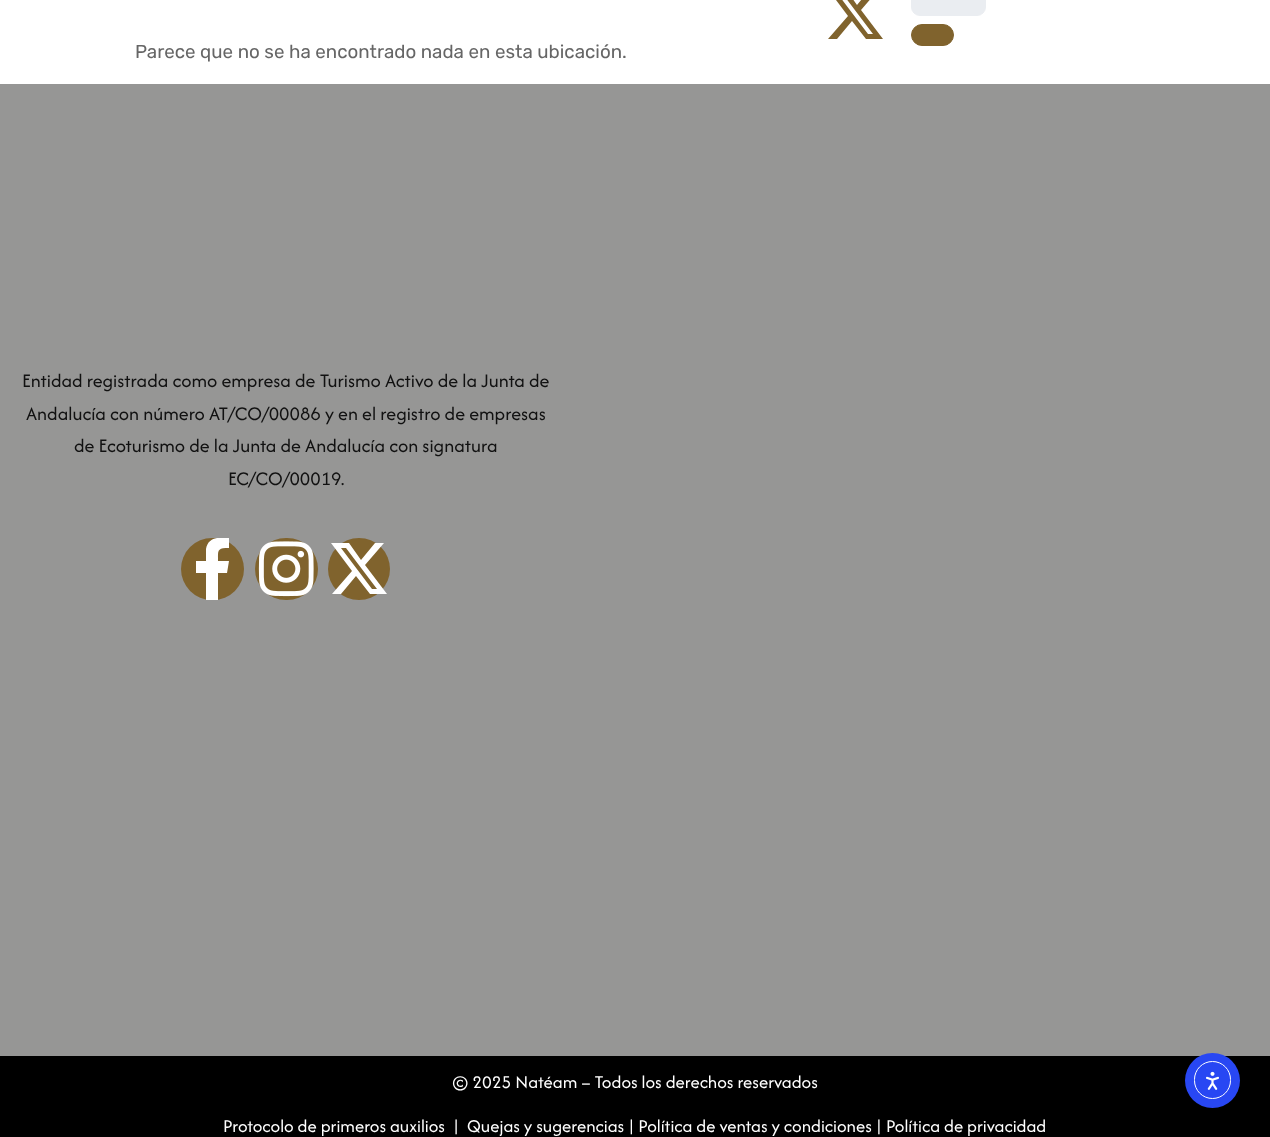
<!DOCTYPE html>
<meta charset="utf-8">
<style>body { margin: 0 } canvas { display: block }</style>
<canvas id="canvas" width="1270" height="1137"></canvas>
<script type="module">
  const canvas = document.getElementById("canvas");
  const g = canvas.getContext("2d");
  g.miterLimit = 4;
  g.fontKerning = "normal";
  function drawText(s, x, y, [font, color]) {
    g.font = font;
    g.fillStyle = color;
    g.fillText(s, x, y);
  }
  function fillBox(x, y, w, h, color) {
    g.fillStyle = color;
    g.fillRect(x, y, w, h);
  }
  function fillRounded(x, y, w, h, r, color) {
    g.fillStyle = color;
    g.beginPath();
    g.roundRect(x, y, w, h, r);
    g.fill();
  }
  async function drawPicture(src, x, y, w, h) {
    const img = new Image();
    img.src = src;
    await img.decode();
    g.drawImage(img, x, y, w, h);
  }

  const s1 = ["18.75px Rubik", "#666666"];
  const s2 = ["20px Afacad", "#111111"];
  const s3 = ["18.75px Afacad", "#FFFFFF"];

  fillBox(0, 0, 1270, 1137, "#FFFFFF");
  g.fillStyle = "#80632D";
  g.beginPath();
  g.moveTo(871, -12);
  g.lineTo(880, -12);
  g.lineTo(861, 10);
  g.lineTo(883, 39);
  g.lineTo(866, 39);
  g.lineTo(852, 21);
  g.lineTo(837, 39);
  g.lineTo(828, 39);
  g.lineTo(848, 16);
  g.lineTo(827, -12);
  g.lineTo(845, -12);
  g.lineTo(857, 5);
  g.closePath();
  g.moveTo(868, 34);
  g.lineTo(873, 34);
  g.lineTo(842, -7);
  g.lineTo(837, -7);
  g.closePath();
  g.fill();
  g.fillStyle = "#EAEDF1";
  g.beginPath();
  g.roundRect(911.5, -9.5, 74, 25, 8.5);
  g.fill();
  g.strokeStyle = "#EAEDF1";
  g.stroke();
  g.fillStyle = "#80632D";
  g.beginPath();
  g.roundRect(911.5, 24.5, 42, 21, 10.5);
  g.fill();
  g.strokeStyle = "#80632D";
  g.stroke();
  drawText("Parece que no se ha encontrado nada en esta ubicación.", 135, 58, s1);
  fillBox(0, 84, 1270, 972, "#969695");
  drawText("Entidad registrada como empresa de Turismo Activo de la Junta de", 22, 387, s2);
  drawText("Andalucía con número AT/CO/00086 y en el registro de empresas", 26, 420, s2);
  drawText("de Ecoturismo de la Junta de Andalucía con signatura", 74, 452, s2);
  drawText("EC/CO/00019.", 228, 485, s2);
  fillRounded(181, 538, 63, 62, 31, "#80632D");
  g.save();
  g.beginPath();
  g.rect(181, 538, 63, 62);
  g.clip();
  g.fillStyle = "#FFFFFF";
  g.beginPath();
  g.moveTo(227, 573);
  g.lineTo(229, 561);
  g.lineTo(218, 561);
  g.bezierCurveTo(218, 550, 217, 548, 229, 548);
  g.lineTo(229, 538);
  g.bezierCurveTo(219, 537, 208, 537, 206, 549);
  g.lineTo(206, 561);
  g.lineTo(196, 561);
  g.lineTo(196, 573);
  g.lineTo(206, 573);
  g.lineTo(206, 600);
  g.lineTo(218, 600);
  g.lineTo(218, 573);
  g.closePath();
  g.fill();
  g.restore();
  fillRounded(255, 538, 63, 62, 31, "#80632D");
  await drawPicture("pic1.png", 258, 541, 56, 56);
  g.beginPath();
  g.arc(359, 569, 31, 0, Math.PI * 2);
  g.fill();
  g.fillStyle = "#FFFFFF";
  g.beginPath();
  g.moveTo(375, 543);
  g.lineTo(384, 543);
  g.lineTo(365, 565);
  g.lineTo(387, 594);
  g.lineTo(370, 594);
  g.lineTo(356, 576);
  g.lineTo(341, 594);
  g.lineTo(332, 594);
  g.lineTo(352, 571);
  g.lineTo(331, 543);
  g.lineTo(349, 543);
  g.lineTo(361, 560);
  g.closePath();
  g.moveTo(372, 589);
  g.lineTo(377, 589);
  g.lineTo(346, 548);
  g.lineTo(341, 548);
  g.closePath();
  g.fill();
  fillBox(0, 1056, 1270, 81, "#000000");
  drawText("© 2025 Natéam – Todos los derechos reservados", 452, 1088, s3);
  drawText("Protocolo de primeros auxilios", 223, 1132, s3);
  drawText("|  Quejas y sugerencias | Política de ventas y condiciones | Política de privacidad", 453, 1132, s3);
  g.fillStyle = "#2847F3";
  g.beginPath();
  g.arc(1212.5, 1080.5, 27.5, 0, Math.PI * 2);
  g.fill();
  g.beginPath();
  g.roundRect(1194.5, 1061.5, 36, 37, 18);
  g.strokeStyle = "#FFFFFF";
  g.stroke();
  await drawPicture("pic2.png", 1206, 1071, 13, 19);
</script>
